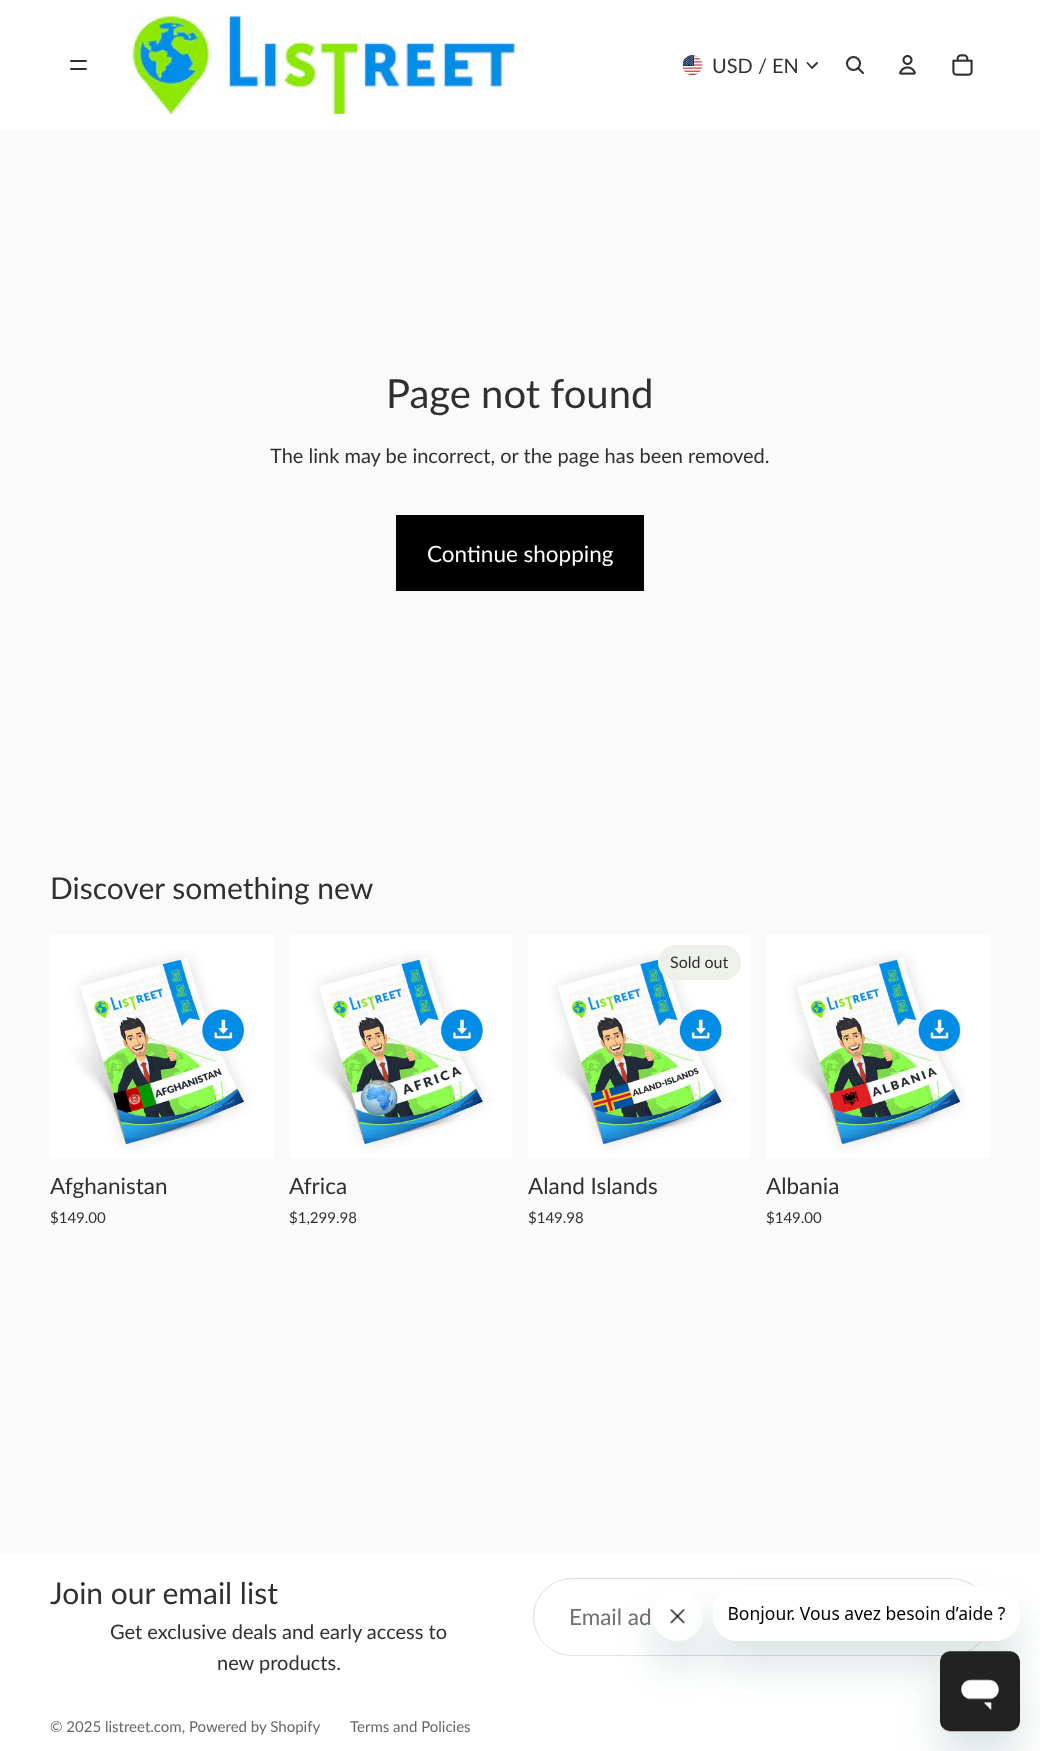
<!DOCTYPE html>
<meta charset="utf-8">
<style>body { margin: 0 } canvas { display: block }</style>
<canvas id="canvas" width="1040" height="1751"></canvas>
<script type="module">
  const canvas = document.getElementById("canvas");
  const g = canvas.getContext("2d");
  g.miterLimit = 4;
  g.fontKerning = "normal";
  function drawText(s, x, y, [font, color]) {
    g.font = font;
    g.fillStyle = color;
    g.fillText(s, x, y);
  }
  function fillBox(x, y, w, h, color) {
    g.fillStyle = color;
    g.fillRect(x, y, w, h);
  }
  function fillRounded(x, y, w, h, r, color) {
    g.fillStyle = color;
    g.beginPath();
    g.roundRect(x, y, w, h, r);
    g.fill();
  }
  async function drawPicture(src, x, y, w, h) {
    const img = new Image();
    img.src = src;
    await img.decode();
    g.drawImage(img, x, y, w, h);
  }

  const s1 = ["20px Lato", "#303030"];
  const s2 = ["40px Lato", "#303030"];
  const s3 = ["22.5px Lato", "#FFFFFF"];
  const s4 = ["30px Lato", "#303030"];
  const s5 = ["22.5px Lato", "#303030"];
  const s6 = ["15px Lato", "#303030"];
  const s7 = ["16px Lato", "#303030"];
  const s8 = ["22.5px Lato", "#707070"];
  const s9 = ["15px Lato", "#666666"];

  fillBox(0, 0, 1040, 1751, "#FFFFFF");
  g.beginPath();
  g.moveTo(71, 61);
  g.lineTo(86, 61);
  g.moveTo(71, 69);
  g.lineTo(86, 69);
  g.strokeStyle = "#303030";
  g.lineWidth = 1.8;
  g.lineCap = "round";
  g.stroke();
  await drawPicture("pic1.png", 132, 14, 383, 102);
  await drawPicture("pic2.png", 683, 55, 20, 20);
  drawText("USD / EN", 712, 73, s1);
  g.beginPath();
  g.moveTo(817, 63);
  g.lineTo(812, 68);
  g.lineTo(807.5, 63);
  g.lineJoin = "round";
  g.stroke();
  g.beginPath();
  g.arc(853.5, 63.5, 6.5, 0, Math.PI * 2);
  g.lineWidth = 2.1;
  g.stroke();
  g.beginPath();
  g.moveTo(858.5, 68.5);
  g.lineTo(863, 73);
  g.strokeStyle = "rgba(0, 0, 0, 0.81)";
  g.stroke();
  await drawPicture("pic3.png", 899, 55, 17, 20);
  await drawPicture("pic4.png", 952, 54, 21, 22);
  fillBox(0, 130, 1040, 1423, "#FAFAFA");
  drawText("Page not found", 386, 408, s2);
  drawText("The link may be incorrect, or the page has been removed.", 270, 463, s1);
  fillBox(396, 515, 248, 76, "#000000");
  drawText("Continue shopping", 427, 562, s3);
  drawText("Discover something new", 50, 899, s4);
  await drawPicture("pic5.png", 50, 935, 224, 224);
  drawText("Afghanistan", 50, 1194, s5);
  drawText("$149.00", 50, 1223, s6);
  await drawPicture("pic6.png", 289, 935, 223, 223);
  drawText("Africa", 289, 1194, s5);
  drawText("$1,299.98", 289, 1223, s6);
  await drawPicture("pic7.png", 528, 935, 223, 223);
  fillRounded(658, 945, 83, 35, 17.5, "#EEF1EA");
  drawText("Sold out", 670, 968, s7);
  drawText("Aland Islands", 528, 1194, s5);
  drawText("$149.98", 528, 1223, s6);
  await drawPicture("pic8.png", 767, 935, 223, 223);
  drawText("Albania", 766, 1194, s5);
  drawText("$149.00", 766, 1223, s6);
  drawText("Join our email list", 50, 1604, s4);
  drawText("Get exclusive deals and early access to", 110, 1639, s1);
  drawText("new products.", 217, 1670, s1);
  g.beginPath();
  g.roundRect(533.5, 1578.5, 456, 77, 38.5);
  g.strokeStyle = "#DFDFDF";
  g.lineWidth = 1;
  g.lineJoin = "miter";
  g.stroke();
  drawText("Email ad", 569, 1625, s8);
  g.save();
  g.beginPath();
  g.moveTo(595, 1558);
  g.lineTo(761, 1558);
  g.lineTo(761, 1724);
  g.lineTo(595, 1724);
  g.closePath();
  g.moveTo(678, 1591);
  g.bezierCurveTo(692, 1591, 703, 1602, 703, 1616);
  g.bezierCurveTo(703, 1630, 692, 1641, 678, 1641);
  g.bezierCurveTo(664, 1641, 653, 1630, 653, 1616);
  g.bezierCurveTo(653, 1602, 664, 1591, 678, 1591);
  g.closePath();
  g.clip("evenodd");
  g.fillStyle = "rgba(23, 73, 77, 0.15)";
  g.filter = "blur(19px)";
  g.beginPath();
  g.roundRect(653, 1616, 50, 50, 25);
  g.fill();
  g.filter = "none";
  g.restore();
  await drawPicture("pic10.png", 652, 1608, 50, 18);
  g.save();
  g.beginPath();
  g.moveTo(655, 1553);
  g.lineTo(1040, 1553);
  g.lineTo(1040, 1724);
  g.lineTo(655, 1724);
  g.closePath();
  g.moveTo(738, 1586);
  g.lineTo(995, 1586);
  g.bezierCurveTo(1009, 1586, 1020, 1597, 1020, 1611);
  g.lineTo(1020, 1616);
  g.bezierCurveTo(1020, 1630, 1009, 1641, 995, 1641);
  g.lineTo(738, 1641);
  g.bezierCurveTo(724, 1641, 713, 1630, 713, 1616);
  g.lineTo(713, 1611);
  g.bezierCurveTo(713, 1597, 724, 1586, 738, 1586);
  g.closePath();
  g.clip("evenodd");
  g.fillStyle = "rgba(23, 73, 77, 0.15)";
  g.filter = "blur(19px)";
  g.beginPath();
  g.roundRect(713, 1611, 307, 55, 25);
  g.fill();
  g.filter = "none";
  g.restore();
  await drawPicture("pic9.png", 713, 1586, 292, 55);
  g.fillStyle = "rgba(23, 73, 77, 0.15)";
  g.filter = "blur(19px)";
  g.beginPath();
  g.roundRect(940, 1676, 80, 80, 10);
  g.fill();
  g.filter = "none";
  await drawPicture("pic11.png", 940, 1651, 80, 81);
  drawText("© 2025 listreet.com, Powered by Shopify", 50, 1732, s9);
  drawText("Terms and Policies", 350, 1732, s9);
</script>
